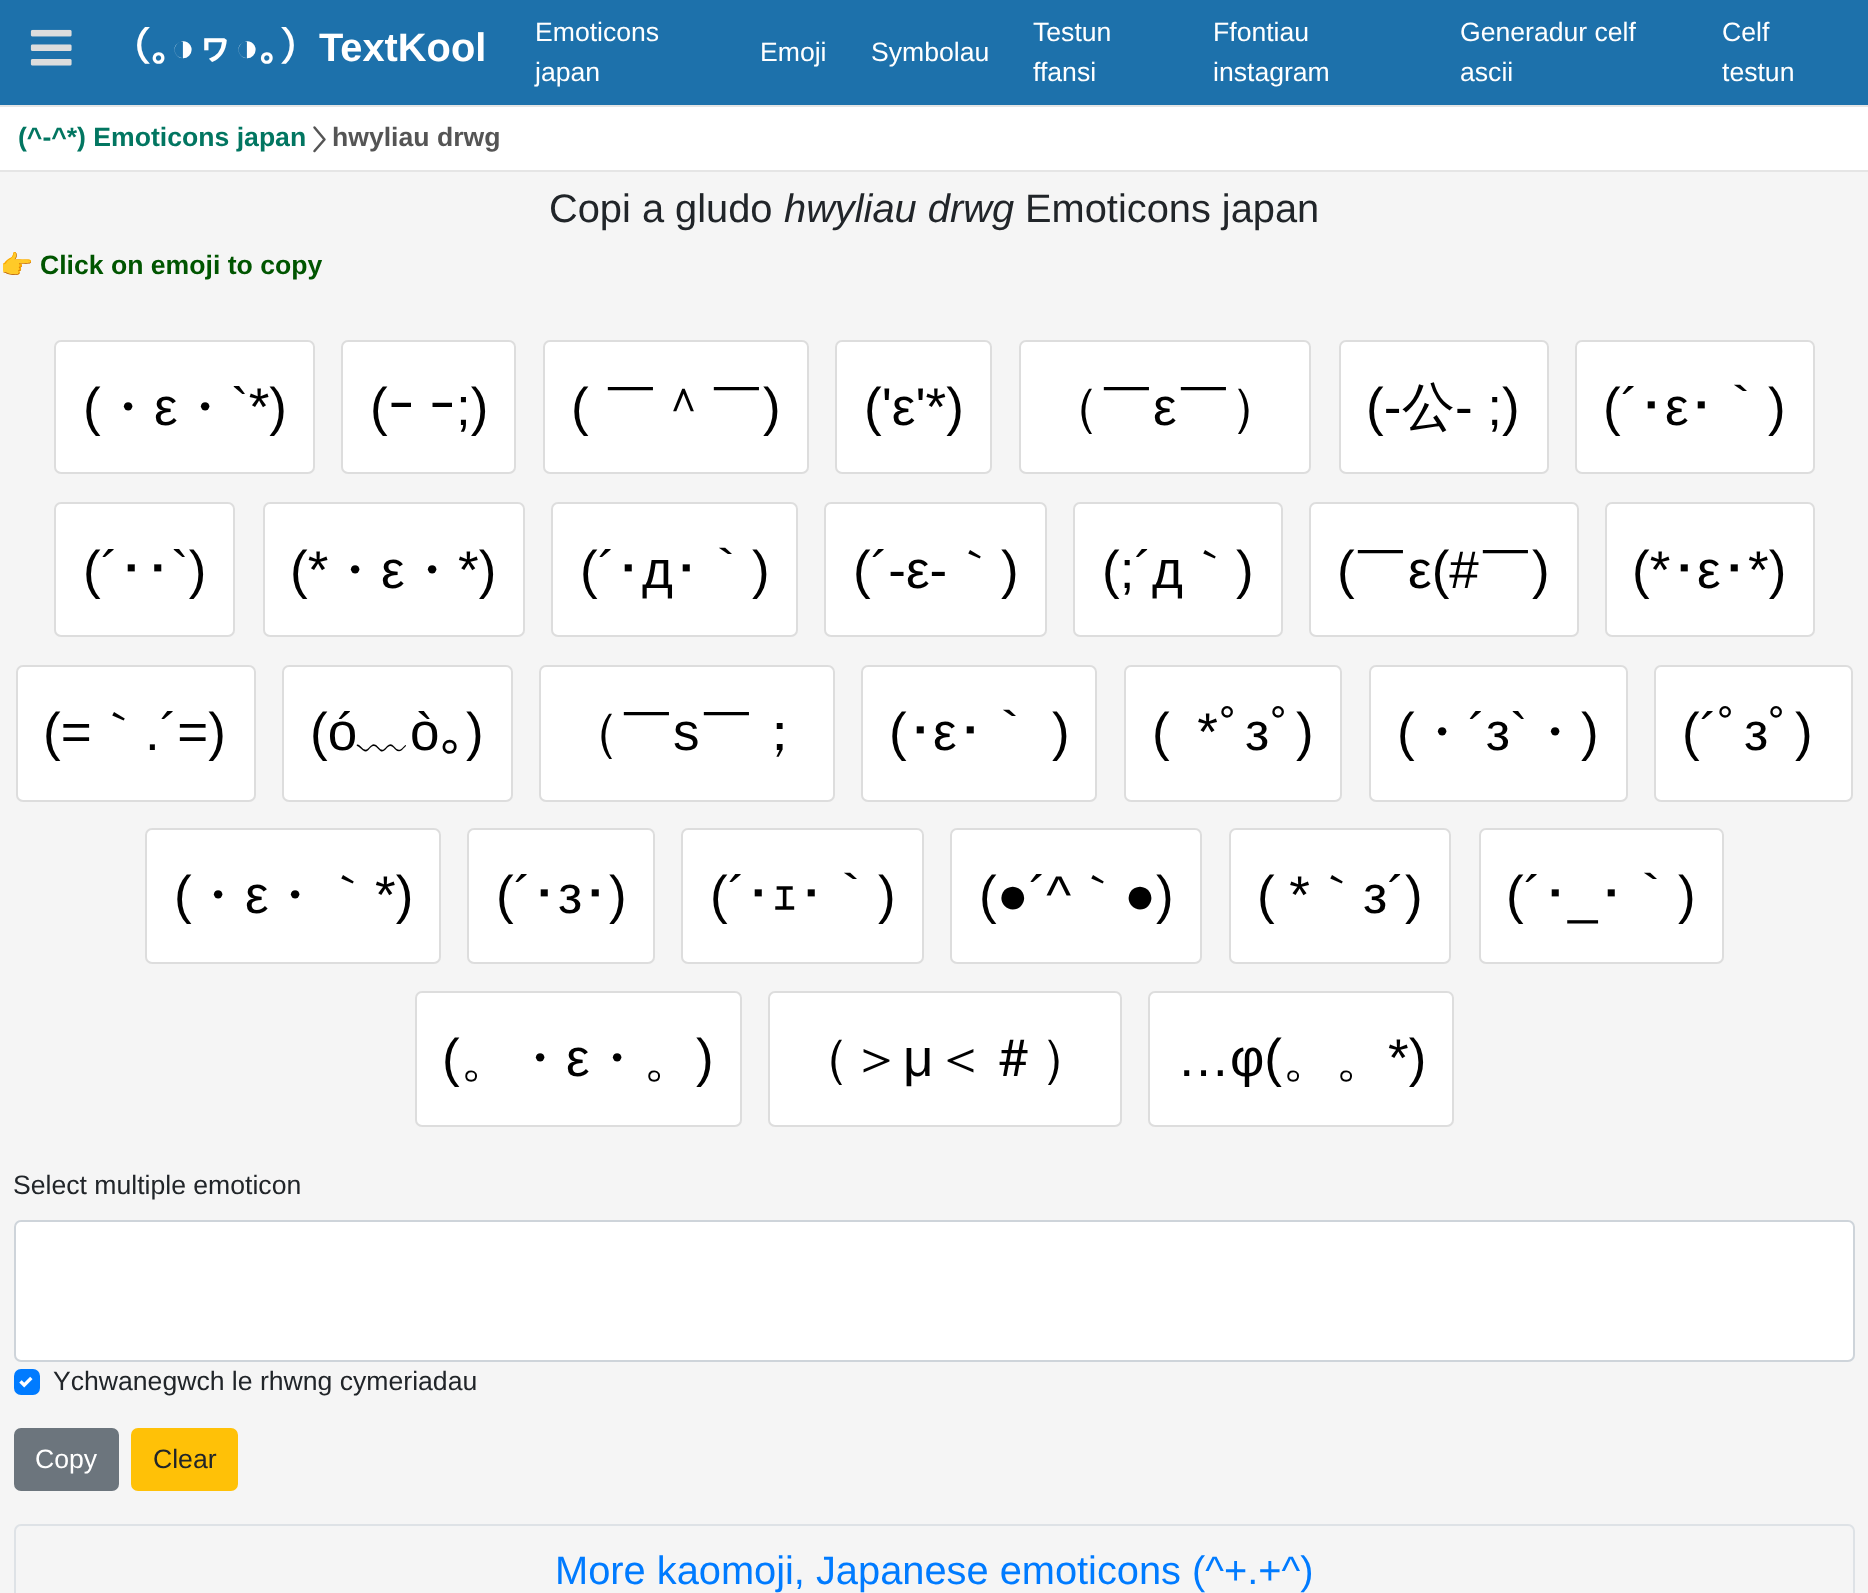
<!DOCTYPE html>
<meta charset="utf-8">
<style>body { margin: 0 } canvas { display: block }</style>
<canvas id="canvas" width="1868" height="1593"></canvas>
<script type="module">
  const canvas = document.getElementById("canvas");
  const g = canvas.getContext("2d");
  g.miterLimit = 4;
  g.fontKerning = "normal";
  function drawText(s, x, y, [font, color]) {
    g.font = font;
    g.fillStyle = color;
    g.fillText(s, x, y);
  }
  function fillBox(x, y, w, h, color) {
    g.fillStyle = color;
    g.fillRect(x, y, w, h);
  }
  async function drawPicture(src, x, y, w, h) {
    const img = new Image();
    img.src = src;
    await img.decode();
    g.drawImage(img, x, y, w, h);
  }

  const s1 = ["bold 39.8px IPAGothic", "#FFFFFF"];
  const s2 = ["bold 39.8px Liberation Sans", "#FFFFFF"];
  const s3 = ["26.6px Liberation Sans", "#FFFFFF"];
  const s4 = ["bold 26.6px Liberation Sans", "#027661"];
  const s5 = ["bold 26.6px Liberation Sans", "#555555"];
  const s6 = ["39.8px Liberation Sans", "#212529"];
  const s7 = ["italic 39.8px Liberation Sans", "#212529"];
  const s8 = ["bold 26.6px Noto Color Emoji", "#005500"];
  const s9 = ["bold 26.6px Liberation Sans", "#005500"];
  const s10 = ["53px Liberation Sans", "#000000"];
  const s11 = ["500 53px WenQuanYi Zen Hei", "#000000"];
  const s12 = ["53px IPAGothic", "#000000"];
  const s13 = ["26.6px Liberation Sans", "#212529"];
  const s14 = ["39.8px Liberation Sans", "#007BFF"];

  fillBox(0, 0, 1868, 1593, "#F5F5F5");
  fillBox(0, 0, 1868, 105, "#1D71AB");
  fillBox(0, 105, 1868, 2, "#E5E5E5");
  await drawPicture("pic1.png", 30, 29, 42, 37);
  drawText("（｡", 111, 61, s1);
  drawText("◑", 171, 61, s2);
  drawText("ヮ", 195, 61, s1);
  drawText("◑", 235, 61, s2);
  drawText("｡）", 259, 61, s1);
  drawText("TextKool", 319, 61, s2);
  drawText("Emoticons", 535, 41, s3);
  drawText("japan", 535, 81, s3);
  drawText("Emoji", 760, 61, s3);
  drawText("Symbolau", 871, 61, s3);
  drawText("Testun", 1033, 41, s3);
  drawText("ffansi", 1033, 81, s3);
  drawText("Ffontiau", 1213, 41, s3);
  drawText("instagram", 1213, 81, s3);
  drawText("Generadur celf", 1460, 41, s3);
  drawText("ascii", 1460, 81, s3);
  drawText("Celf", 1722, 41, s3);
  drawText("testun", 1722, 81, s3);
  fillBox(0, 107, 1868, 63, "#FFFFFF");
  fillBox(0, 170, 1868, 2, "#E5E5E5");
  drawText("(^-^*) Emoticons japan", 18, 146, s4);
  g.beginPath();
  g.moveTo(314.5, 151);
  g.lineTo(324.5, 139.5);
  g.lineTo(314.5, 127.5);
  g.strokeStyle = "#555555";
  g.lineWidth = 2.5;
  g.lineCap = "round";
  g.lineJoin = "round";
  g.stroke();
  drawText("hwyliau drwg", 332, 146, s5);
  drawText("Copi a gludo", 549, 222, s6);
  drawText("hwyliau drwg", 784, 222, s7);
  drawText("Emoticons japan", 1025, 222, s6);
  drawText("👉", 0, 274, s8);
  drawText("Click on emoji to copy", 40, 274, s9);
  g.fillStyle = "#FFFFFF";
  g.beginPath();
  g.roundRect(55, 341, 259, 132, 6);
  g.fill();
  g.strokeStyle = "#DDDDDD";
  g.lineWidth = 2;
  g.lineJoin = "miter";
  g.stroke();
  drawText("(", 83, 425, s10);
  drawText("・", 101, 425, s11);
  drawText("ε", 154, 425, s10);
  drawText("・", 178, 425, s11);
  drawText("`*)", 231, 425, s10);
  g.fillStyle = "#FFFFFF";
  g.beginPath();
  g.roundRect(342, 341, 173, 132, 6);
  g.fill();
  g.stroke();
  drawText("(", 370, 425, s10);
  g.wordSpacing = "-12px";
  drawText("ｰ ｰ", 388, 425, s12);
  g.wordSpacing = "0px";
  drawText(";)", 456, 425, s10);
  g.fillStyle = "#FFFFFF";
  g.beginPath();
  g.roundRect(544, 341, 264, 132, 6);
  g.fill();
  g.stroke();
  drawText("(", 571, 425, s10);
  drawText("￣＾￣", 604, 425, s11);
  drawText(")", 763, 425, s10);
  g.fillStyle = "#FFFFFF";
  g.beginPath();
  g.roundRect(836, 341, 155, 132, 6);
  g.fill();
  g.stroke();
  drawText("('ε'*)", 864, 425, s10);
  g.fillStyle = "#FFFFFF";
  g.beginPath();
  g.roundRect(1020, 341, 290, 132, 6);
  g.fill();
  g.stroke();
  drawText("（￣", 1047, 425, s11);
  drawText("ε", 1153, 425, s10);
  drawText("￣）", 1177, 425, s11);
  g.fillStyle = "#FFFFFF";
  g.beginPath();
  g.roundRect(1340, 341, 208, 132, 6);
  g.fill();
  g.stroke();
  drawText("(-", 1366, 425, s10);
  drawText("公", 1402, 425, s11);
  drawText("- ;)", 1455, 425, s10);
  g.fillStyle = "#FFFFFF";
  g.beginPath();
  g.roundRect(1576, 341, 238, 132, 6);
  g.fill();
  g.stroke();
  drawText("(´", 1603, 425, s10);
  drawText("･", 1638, 425, s12);
  drawText("ε", 1665, 425, s10);
  drawText("･｀", 1688, 425, s12);
  drawText(")", 1768, 425, s10);
  g.fillStyle = "#FFFFFF";
  g.beginPath();
  g.roundRect(55, 503, 179, 133, 6);
  g.fill();
  g.stroke();
  drawText("(´", 83, 588, s10);
  drawText("･･", 118, 588, s12);
  drawText("`)", 171, 588, s10);
  g.fillStyle = "#FFFFFF";
  g.beginPath();
  g.roundRect(264, 503, 260, 133, 6);
  g.fill();
  g.stroke();
  drawText("(*", 290, 588, s10);
  drawText("・", 328, 588, s11);
  drawText("ε", 381, 588, s10);
  drawText("・", 405, 588, s11);
  drawText("*)", 458, 588, s10);
  g.fillStyle = "#FFFFFF";
  g.beginPath();
  g.roundRect(552, 503, 245, 133, 6);
  g.fill();
  g.stroke();
  drawText("(´", 580, 588, s10);
  drawText("･", 615, 588, s12);
  drawText("д", 642, 588, s10);
  drawText("･｀", 673, 588, s12);
  drawText(")", 752, 588, s10);
  g.fillStyle = "#FFFFFF";
  g.beginPath();
  g.roundRect(825, 503, 221, 133, 6);
  g.fill();
  g.stroke();
  drawText("(´-ε-", 853, 588, s10);
  drawText("｀", 948, 588, s11);
  drawText(")", 1001, 588, s10);
  g.fillStyle = "#FFFFFF";
  g.beginPath();
  g.roundRect(1074, 503, 208, 133, 6);
  g.fill();
  g.stroke();
  drawText("(;´д", 1102, 588, s10);
  drawText("｀", 1183, 588, s11);
  drawText(")", 1236, 588, s10);
  g.fillStyle = "#FFFFFF";
  g.beginPath();
  g.roundRect(1310, 503, 268, 133, 6);
  g.fill();
  g.stroke();
  drawText("(", 1337, 588, s10);
  drawText("￣", 1354, 588, s11);
  drawText("ε(#", 1408, 588, s10);
  drawText("￣", 1479, 588, s11);
  drawText(")", 1532, 588, s10);
  g.fillStyle = "#FFFFFF";
  g.beginPath();
  g.roundRect(1606, 503, 208, 133, 6);
  g.fill();
  g.stroke();
  drawText("(*", 1632, 588, s10);
  drawText("･", 1671, 588, s12);
  drawText("ε", 1697, 588, s10);
  drawText("･", 1721, 588, s12);
  drawText("*)", 1748, 588, s10);
  g.fillStyle = "#FFFFFF";
  g.beginPath();
  g.roundRect(17, 666, 238, 135, 6);
  g.fill();
  g.stroke();
  drawText("(=", 43, 750, s10);
  drawText("｀", 92, 750, s11);
  drawText(".´=)", 145, 750, s10);
  g.fillStyle = "#FFFFFF";
  g.beginPath();
  g.roundRect(283, 666, 229, 135, 6);
  g.fill();
  g.stroke();
  drawText("(ó", 310, 750, s10);
  drawText("﹏", 357, 750, s11);
  drawText("ò", 410, 750, s10);
  drawText("｡", 440, 750, s12);
  drawText(")", 466, 750, s10);
  g.fillStyle = "#FFFFFF";
  g.beginPath();
  g.roundRect(540, 666, 294, 135, 6);
  g.fill();
  g.stroke();
  drawText("（￣", 567, 750, s11);
  drawText("s", 673, 750, s10);
  drawText("￣；", 700, 750, s11);
  g.fillStyle = "#FFFFFF";
  g.beginPath();
  g.roundRect(862, 666, 234, 135, 6);
  g.fill();
  g.stroke();
  drawText("(", 889, 750, s10);
  drawText("･", 907, 750, s12);
  drawText("ε", 933, 750, s10);
  drawText("･｀", 957, 750, s12);
  drawText(")", 1052, 750, s10);
  g.fillStyle = "#FFFFFF";
  g.beginPath();
  g.roundRect(1125, 666, 216, 135, 6);
  g.fill();
  g.stroke();
  g.wordSpacing = "13px";
  drawText("( *", 1152, 750, s10);
  g.wordSpacing = "0px";
  drawText("ﾟ", 1219, 750, s12);
  drawText("з", 1245, 750, s10);
  drawText("ﾟ", 1270, 750, s12);
  drawText(")", 1296, 750, s10);
  g.fillStyle = "#FFFFFF";
  g.beginPath();
  g.roundRect(1370, 666, 257, 135, 6);
  g.fill();
  g.stroke();
  drawText("(", 1397, 750, s10);
  drawText("・", 1415, 750, s11);
  drawText("´з`", 1468, 750, s10);
  drawText("・", 1528, 750, s11);
  drawText(")", 1581, 750, s10);
  g.fillStyle = "#FFFFFF";
  g.beginPath();
  g.roundRect(1655, 666, 197, 135, 6);
  g.fill();
  g.stroke();
  drawText("(´", 1682, 750, s10);
  drawText("ﾟ", 1717, 750, s12);
  drawText("з", 1744, 750, s10);
  drawText("ﾟ", 1768, 750, s12);
  drawText(")", 1795, 750, s10);
  g.fillStyle = "#FFFFFF";
  g.beginPath();
  g.roundRect(146, 829, 294, 134, 6);
  g.fill();
  g.stroke();
  drawText("(", 174, 913, s10);
  drawText("・", 191, 913, s11);
  drawText("ε", 245, 913, s10);
  drawText("・｀", 268, 913, s11);
  drawText("*)", 375, 913, s10);
  g.fillStyle = "#FFFFFF";
  g.beginPath();
  g.roundRect(468, 829, 186, 134, 6);
  g.fill();
  g.stroke();
  drawText("(´", 496, 913, s10);
  drawText("･", 531, 913, s12);
  drawText("з", 558, 913, s10);
  drawText("･", 582, 913, s12);
  drawText(")", 609, 913, s10);
  g.fillStyle = "#FFFFFF";
  g.beginPath();
  g.roundRect(682, 829, 241, 134, 6);
  g.fill();
  g.stroke();
  drawText("(´", 710, 913, s10);
  drawText("･ｪ･｀", 745, 913, s12);
  drawText(")", 878, 913, s10);
  g.fillStyle = "#FFFFFF";
  g.beginPath();
  g.roundRect(951, 829, 250, 134, 6);
  g.fill();
  g.stroke();
  drawText("(●´^", 979, 913, s10);
  drawText("｀", 1071, 913, s11);
  drawText("●)", 1124, 913, s10);
  g.fillStyle = "#FFFFFF";
  g.beginPath();
  g.roundRect(1230, 829, 220, 134, 6);
  g.fill();
  g.stroke();
  drawText("( *", 1257, 913, s10);
  drawText("｀", 1310, 913, s11);
  drawText("з´)", 1363, 913, s10);
  g.fillStyle = "#FFFFFF";
  g.beginPath();
  g.roundRect(1480, 829, 243, 134, 6);
  g.fill();
  g.stroke();
  drawText("(´", 1506, 913, s10);
  drawText("･", 1542, 913, s12);
  drawText("･｀", 1598, 913, s12);
  drawText(")", 1678, 913, s10);
  drawText("_", 1568, 913, s10);
  g.fillStyle = "#FFFFFF";
  g.beginPath();
  g.roundRect(416, 992, 325, 134, 6);
  g.fill();
  g.stroke();
  drawText("(", 442, 1076, s10);
  drawText("。・", 460, 1076, s11);
  drawText("ε", 566, 1076, s10);
  drawText("・。", 590, 1076, s11);
  drawText(")", 696, 1076, s10);
  g.fillStyle = "#FFFFFF";
  g.beginPath();
  g.roundRect(769, 992, 352, 134, 6);
  g.fill();
  g.stroke();
  drawText("（＞", 797, 1076, s11);
  drawText("μ", 903, 1076, s10);
  drawText("＜＃）", 934, 1076, s11);
  g.fillStyle = "#FFFFFF";
  g.beginPath();
  g.roundRect(1149, 992, 304, 134, 6);
  g.fill();
  g.stroke();
  drawText("…φ(", 1177, 1076, s10);
  drawText("。。", 1282, 1076, s11);
  drawText("*)", 1388, 1076, s10);
  drawText("Select multiple emoticon", 13, 1194, s13);
  g.fillStyle = "#FFFFFF";
  g.beginPath();
  g.roundRect(15, 1221, 1839, 140, 6);
  g.fill();
  g.strokeStyle = "#CED4DA";
  g.stroke();
  g.fillStyle = "#007BFF";
  g.beginPath();
  g.roundRect(15, 1370, 24, 24, 6);
  g.fill();
  g.strokeStyle = "#007BFF";
  g.stroke();
  drawText("Ychwanegwch le rhwng cymeriadau", 53, 1390, s13);
  await drawPicture("pic2.png", 19, 1376, 14, 12);
  g.fillStyle = "#6C757D";
  g.beginPath();
  g.roundRect(15, 1429, 103, 61, 6);
  g.fill();
  g.strokeStyle = "#6C757D";
  g.stroke();
  drawText("Copy", 35, 1468, s3);
  g.fillStyle = "#FFC107";
  g.beginPath();
  g.roundRect(132, 1429, 105, 61, 6);
  g.fill();
  g.strokeStyle = "#FFC107";
  g.stroke();
  drawText("Clear", 153, 1468, s13);
  g.beginPath();
  g.roundRect(15, 1525, 1839, 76, 6);
  g.strokeStyle = "#DEE2E6";
  g.stroke();
  drawText("More kaomoji, Japanese emoticons (^+.+^)", 555, 1584, s14);
</script>
